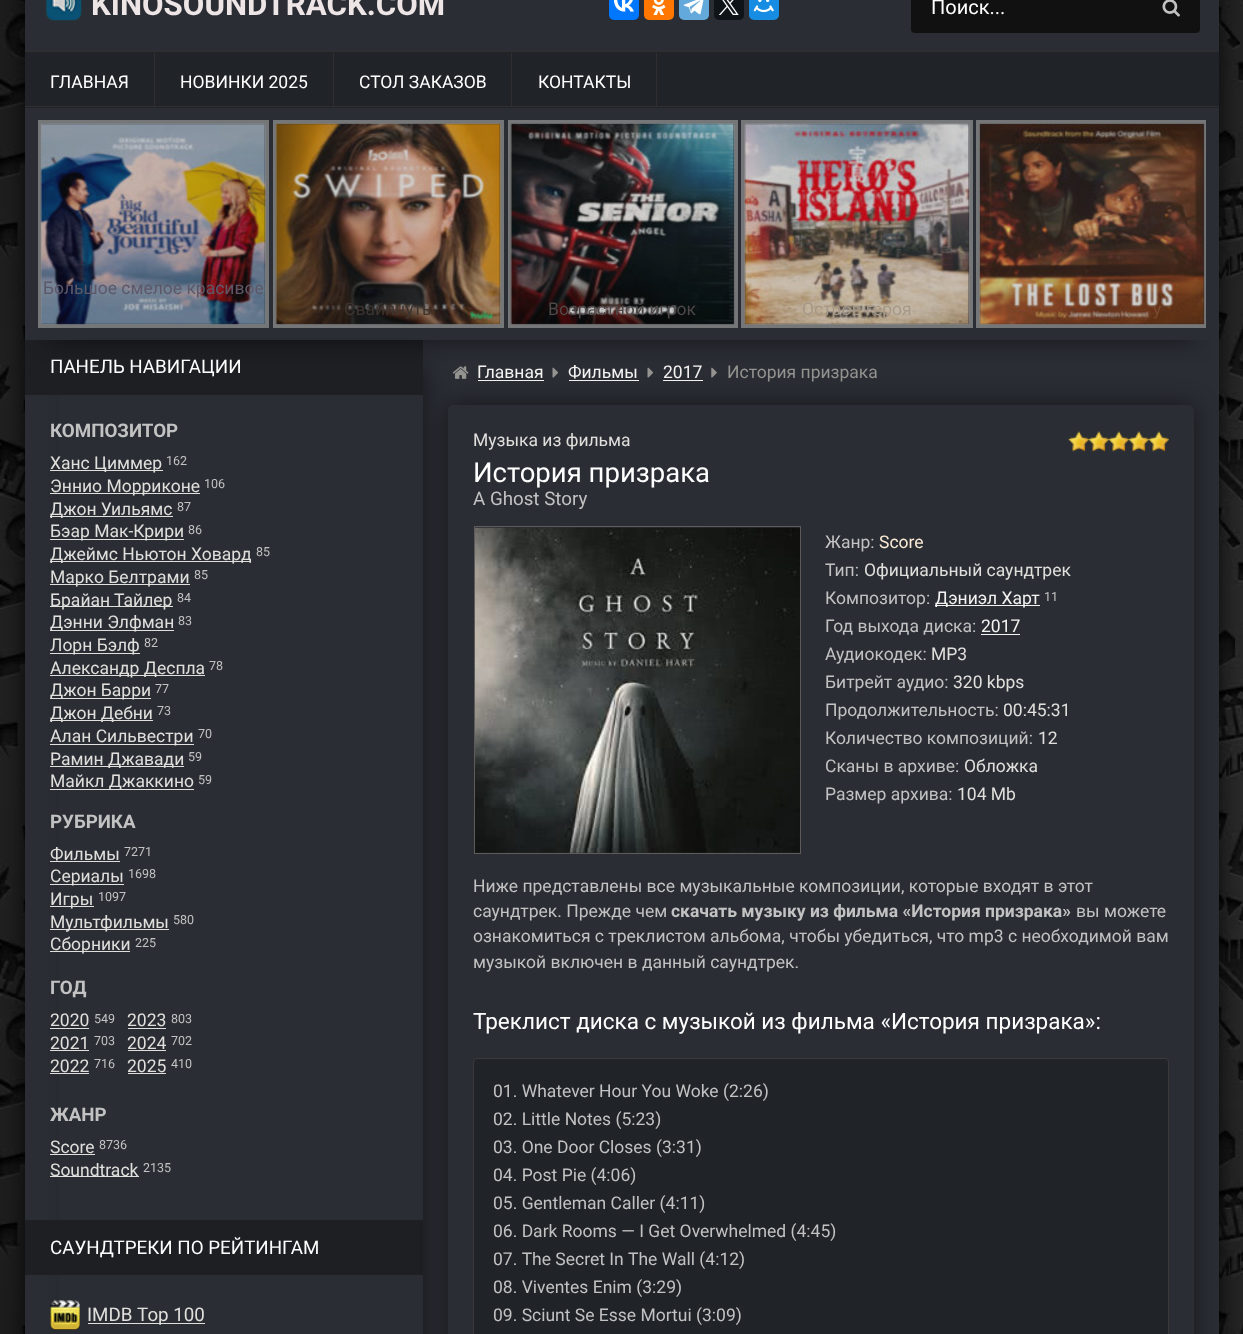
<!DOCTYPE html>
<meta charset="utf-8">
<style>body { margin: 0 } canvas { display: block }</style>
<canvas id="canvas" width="1243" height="1334"></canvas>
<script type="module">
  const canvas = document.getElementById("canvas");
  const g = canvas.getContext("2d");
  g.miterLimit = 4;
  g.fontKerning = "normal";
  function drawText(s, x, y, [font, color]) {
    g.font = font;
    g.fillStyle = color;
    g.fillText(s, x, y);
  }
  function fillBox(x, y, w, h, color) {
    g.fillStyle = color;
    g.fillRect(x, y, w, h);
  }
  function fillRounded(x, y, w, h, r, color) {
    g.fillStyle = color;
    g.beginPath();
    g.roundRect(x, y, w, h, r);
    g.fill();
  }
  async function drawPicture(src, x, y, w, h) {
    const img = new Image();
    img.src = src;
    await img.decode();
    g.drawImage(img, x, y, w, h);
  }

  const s1 = ["bold 31.25px Roboto", "#EEE6E6"];
  const s2 = ["20px Roboto", "#FFFFFF"];
  const s3 = ["17.5px Roboto", "#FFFFFF"];
  const s4 = ["17.5px Roboto", "#5D5869"];
  const s5 = ["17.5px Roboto", "#3E342F"];
  const s6 = ["17.5px Roboto", "#4F4848"];
  const s7 = ["17.5px Roboto", "#A69887"];
  const s8 = ["17.5px Roboto", "#7A4930"];
  const s9 = ["18.75px Roboto", "#FFFFFF"];
  const s10 = ["bold 18.75px Roboto", "#C2C2C2"];
  const s11 = ["17.5px Roboto", "#E0DFDC"];
  const s12 = ["12.5px Roboto", "#C2C2C2"];
  const s13 = ["18.75px Roboto", "#E0DFDC"];
  const s14 = ["17.5px Roboto", "#F4F3F1"];
  const s15 = ["17.5px Roboto", "#949390"];
  const s16 = ["27.5px Roboto", "#FFFFFF"];
  const s17 = ["18.75px Roboto", "#C2C2C2"];
  const s18 = ["17.5px Roboto", "#C2C2C2"];
  const s19 = ["17.5px Roboto", "#FAEBD7"];
  const s20 = ["bold 17.5px Roboto", "#C2C2C2"];
  const s21 = ["22.5px Roboto", "#FFFFFF"];

  fillBox(0, 0, 1243, 1334, "#FFFFFF");
  await drawPicture("pic1.png", 0, 0, 1243, 1334);
  g.fillStyle = "rgba(0, 0, 0, 0.8)";
  g.filter = "blur(12.5px)";
  g.beginPath();
  g.rect(25, -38, 1194, 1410);
  g.fill();
  g.filter = "none";
  fillBox(25, 0, 1194, 1334, "#2A2D34");
  await drawPicture("pic2.png", 46, 0, 36, 21);
  drawText("KINOSOUNDTRACK.COM", 91, 15, s1);
  fillRounded(609, -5, 30, 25, 5, "#0077FF");
  await drawPicture("pic3.png", 613, 0, 21, 12);
  fillRounded(644, -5, 30, 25, 5, "#FF7700");
  await drawPicture("pic4.png", 652, 0, 14, 15);
  fillRounded(679, -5, 30, 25, 5, "#64A9DC");
  await drawPicture("pic5.png", 683, 0, 21, 15);
  fillRounded(714, -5, 30, 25, 5, "#0F1419");
  await drawPicture("pic6.png", 718, 0, 21, 15);
  fillRounded(749, -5, 30, 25, 5, "#168DE2");
  await drawPicture("pic7.png", 753, 0, 21, 13);
  g.fillStyle = "#111111";
  g.beginPath();
  g.roundRect(913, -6, 285, 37, 2);
  g.fill();
  g.strokeStyle = "#111111";
  g.lineWidth = 4;
  g.stroke();
  drawText("Поиск...", 931, 14, s2);
  await drawPicture("pic8.png", 1162, 0, 18, 17);
  fillBox(25, 52, 1194, 56, "#202328");
  fillBox(25, 51, 1194, 1, "#302E2E");
  fillBox(25, 106, 1194, 1, "#302E2E");
  fillBox(154, 53, 1, 53, "#302E2E");
  drawText("ГЛАВНАЯ", 50, 88, s3);
  fillBox(333, 53, 1, 53, "#302E2E");
  drawText("НОВИНКИ 2025", 180, 88, s3);
  fillBox(511, 53, 1, 53, "#302E2E");
  drawText("СТОЛ ЗАКАЗОВ", 359, 88, s3);
  fillBox(656, 53, 1, 53, "#302E2E");
  drawText("КОНТАКТЫ", 538, 88, s3);
  g.fillStyle = "rgba(0, 0, 0, 0.5)";
  g.filter = "blur(12.5px)";
  g.beginPath();
  g.rect(75, 365, 348, 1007);
  g.fill();
  g.filter = "none";
  fillBox(25, 340, 398, 55, "#1E1F23");
  await drawPicture("pic15.png", 452, 366, 17, 13);
  await drawPicture("pic16.png", 552, 367, 6, 11);
  await drawPicture("pic16.png", 647, 367, 6, 11);
  await drawPicture("pic17.png", 711, 367, 6, 11);
  g.save();
  g.beginPath();
  g.rect(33, 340, 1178, 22);
  g.clip();
  g.fillStyle = "rgba(0, 0, 0, 0.5)";
  g.filter = "blur(12.5px)";
  g.beginPath();
  g.rect(50, 170, 1144, 170);
  g.fill();
  g.filter = "none";
  g.restore();
  g.strokeStyle = "#757677";
  g.strokeRect(40, 122, 227, 204);
  await drawPicture("pic9.png", 40, 123, 226, 202);
  drawText("Большое смелое красивое", 43, 294, s4);
  g.strokeRect(275, 122, 227, 204);
  await drawPicture("pic10.png", 275, 123, 226, 202);
  drawText("Свайпнуть", 344, 315, s5);
  g.strokeRect(510, 122, 226, 204);
  await drawPicture("pic11.png", 510, 123, 225, 202);
  drawText("Возрастной игрок", 548, 315, s6);
  g.strokeRect(743, 122, 228, 204);
  await drawPicture("pic12.png", 744, 123, 226, 202);
  drawText("Остров героя", 802, 315, s7);
  g.save();
  g.beginPath();
  g.rect(976, 120, 230, 208);
  g.clip();
  g.strokeRect(978, 122, 228, 204);
  g.restore();
  await drawPicture("pic13.png", 979, 123, 226, 202);
  drawText("у", 1153, 315, s8);
  fillBox(59, 395, 364, 939, "#2A2D34");
  drawText("ПАНЕЛЬ НАВИГАЦИИ", 50, 373, s9);
  drawText("КОМПОЗИТОР", 50, 437, s10);
  fillBox(50, 470, 113, 1, "#E0DFDC");
  drawText("Ханс Циммер", 50, 469, s11);
  drawText("162", 166, 465, s12);
  fillBox(50, 493, 150, 1, "#E0DFDC");
  drawText("Эннио Морриконе", 50, 492, s11);
  drawText("106", 204, 488, s12);
  fillBox(50, 516, 123, 1, "#E0DFDC");
  drawText("Джон Уильямс", 50, 515, s11);
  drawText("87", 177, 511, s12);
  fillBox(50, 539, 134, 1, "#E0DFDC");
  drawText("Бэар Мак-Крири", 50, 537, s11);
  drawText("86", 188, 534, s12);
  fillBox(50, 561, 201, 1, "#E0DFDC");
  drawText("Джеймс Ньютон Ховард", 50, 560, s11);
  drawText("85", 256, 556, s12);
  fillBox(50, 584, 140, 1, "#E0DFDC");
  drawText("Марко Белтрами", 50, 583, s11);
  drawText("85", 194, 579, s12);
  fillBox(50, 606, 123, 1, "#E0DFDC");
  drawText("Брайан Тайлер", 50, 606, s11);
  drawText("84", 177, 602, s12);
  fillBox(50, 630, 124, 1, "#E0DFDC");
  drawText("Дэнни Элфман", 50, 628, s11);
  drawText("83", 178, 625, s12);
  fillBox(50, 653, 90, 1, "#E0DFDC");
  drawText("Лорн Бэлф", 50, 651, s11);
  drawText("82", 144, 647, s12);
  fillBox(50, 675, 155, 1, "#E0DFDC");
  drawText("Александр Деспла", 50, 674, s11);
  drawText("78", 209, 670, s12);
  fillBox(50, 698, 101, 1, "#E0DFDC");
  drawText("Джон Барри", 50, 696, s11);
  drawText("77", 155, 693, s12);
  fillBox(50, 720, 103, 1, "#E0DFDC");
  drawText("Джон Дебни", 50, 719, s11);
  drawText("73", 157, 715, s12);
  fillBox(50, 744, 144, 1, "#E0DFDC");
  drawText("Алан Сильвестри", 50, 742, s11);
  drawText("70", 198, 738, s12);
  fillBox(50, 766, 134, 1, "#E0DFDC");
  drawText("Рамин Джавади", 50, 765, s11);
  drawText("59", 188, 761, s12);
  fillBox(50, 789, 144, 1, "#E0DFDC");
  drawText("Майкл Джаккино", 50, 787, s11);
  drawText("59", 198, 784, s12);
  drawText("РУБРИКА", 50, 828, s10);
  drawText("Фильмы", 50, 860, s11);
  fillBox(50, 861, 70, 1, "#E0DFDC");
  drawText("7271", 124, 856, s12);
  fillBox(50, 884, 74, 1, "#E0DFDC");
  drawText("Сериалы", 50, 882, s11);
  drawText("1698", 128, 878, s12);
  fillBox(50, 906, 44, 1, "#E0DFDC");
  drawText("Игры", 50, 905, s11);
  drawText("1097", 98, 901, s12);
  fillBox(50, 929, 119, 1, "#E0DFDC");
  drawText("Мультфильмы", 50, 928, s11);
  drawText("580", 173, 924, s12);
  fillBox(50, 951, 80, 1, "#E0DFDC");
  drawText("Сборники", 50, 950, s11);
  drawText("225", 135, 947, s12);
  drawText("ГОД", 50, 994, s10);
  drawText("2020", 50, 1026, s11);
  fillBox(50, 1028, 39, 1, "#E0DFDC");
  drawText("549", 94, 1023, s12);
  drawText("2021", 50, 1049, s11);
  fillBox(50, 1050, 39, 1, "#E0DFDC");
  drawText("703", 94, 1045, s12);
  drawText("2022", 50, 1072, s11);
  fillBox(50, 1073, 39, 1, "#E0DFDC");
  drawText("716", 94, 1068, s12);
  drawText("2023", 127, 1026, s11);
  fillBox(128, 1028, 38, 1, "#E0DFDC");
  drawText("803", 171, 1023, s12);
  drawText("2024", 127, 1049, s11);
  fillBox(128, 1050, 38, 1, "#E0DFDC");
  drawText("702", 171, 1045, s12);
  drawText("2025", 127, 1072, s11);
  fillBox(128, 1073, 38, 1, "#E0DFDC");
  drawText("410", 171, 1068, s12);
  drawText("ЖАНР", 50, 1121, s10);
  drawText("Score", 50, 1153, s11);
  fillBox(50, 1154, 45, 1, "#E0DFDC");
  drawText("8736", 99, 1149, s12);
  fillBox(50, 1176, 89, 1, "#E0DFDC");
  drawText("Soundtrack", 50, 1176, s11);
  drawText("2135", 143, 1172, s12);
  fillBox(25, 1220, 398, 55, "#1E1F23");
  drawText("САУНДТРЕКИ ПО РЕЙТИНГАМ", 50, 1254, s9);
  await drawPicture("pic14.png", 50, 1300, 30, 31);
  fillBox(88, 1323, 117, 1, "#E0DFDC");
  drawText("IMDB Top 100", 87, 1321, s13);
  drawText("Главная", 477, 378, s14);
  fillBox(478, 380, 66, 1, "#F4F3F1");
  drawText("Фильмы", 568, 378, s14);
  fillBox(569, 380, 70, 1, "#F4F3F1");
  drawText("2017", 663, 378, s14);
  fillBox(663, 380, 40, 1, "#F4F3F1");
  drawText("История призрака", 727, 378, s15);
  g.fillStyle = "rgba(0, 0, 0, 0.5)";
  g.filter = "blur(12.5px)";
  g.beginPath();
  g.roundRect(448, 405, 746, 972, 5);
  g.fill();
  g.filter = "none";
  fillRounded(448, 405, 746, 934, 5, "#2A2D34");
  drawText("Музыка из фильма", 473, 446, s11);
  drawText("История призрака", 473, 482, s16);
  await drawPicture("pic18.png", 1068, 431, 21, 21);
  await drawPicture("pic19.png", 1088, 431, 21, 21);
  await drawPicture("pic19.png", 1108, 431, 21, 21);
  await drawPicture("pic19.png", 1128, 431, 21, 21);
  await drawPicture("pic19.png", 1148, 431, 21, 21);
  drawText("A Ghost Story", 473, 505, s17);
  g.strokeStyle = "#5F5B58";
  g.lineWidth = 1;
  g.strokeRect(474.5, 526.5, 326, 327);
  await drawPicture("pic20.png", 475, 527, 325, 326);
  drawText("Жанр:", 825, 548, s18);
  drawText("Score", 879, 548, s19);
  drawText("Тип:", 825, 576, s18);
  drawText("Официальный саундтрек", 864, 576, s11);
  drawText("Композитор:", 825, 604, s18);
  fillBox(935, 605, 105, 1, "#F4F3F1");
  drawText("Дэниэл Харт", 935, 604, s14);
  drawText("11", 1044, 601, s12);
  drawText("Год выхода диска:", 825, 632, s18);
  drawText("2017", 981, 632, s14);
  fillBox(981, 634, 39, 1, "#F4F3F1");
  drawText("Аудиокодек:", 825, 660, s18);
  drawText("MP3", 931, 660, s11);
  drawText("Битрейт аудио:", 825, 688, s18);
  drawText("320 kbps", 953, 688, s11);
  drawText("Продолжительность:", 825, 716, s18);
  drawText("00:45:31", 1003, 716, s11);
  drawText("Количество композиций:", 825, 744, s18);
  drawText("12", 1038, 744, s11);
  drawText("Сканы в архиве:", 825, 772, s18);
  drawText("Обложка", 964, 772, s11);
  drawText("Размер архива:", 825, 800, s18);
  drawText("104 Mb", 957, 800, s11);
  drawText("Ниже представлены все музыкальные композиции, которые входят в этот", 473, 892, s18);
  drawText("саундтрек. Прежде чем", 473, 917, s18);
  drawText("скачать музыку из фильма «История призрака»", 671, 917, s20);
  drawText("вы можете", 1076, 917, s18);
  drawText("ознакомиться с треклистом альбома, чтобы убедиться, что mp3 с необходимой вам", 473, 942, s18);
  drawText("музыкой включен в данный саундтрек.", 473, 968, s18);
  drawText("Треклист диска с музыкой из фильма «История призрака»:", 473, 1029, s21);
  g.fillStyle = "#202328";
  g.beginPath();
  g.roundRect(473.5, 1058.5, 695, 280, 3.5);
  g.fill();
  g.strokeStyle = "#3B3939";
  g.stroke();
  drawText("01. Whatever Hour You Woke (2:26)", 493, 1097, s18);
  drawText("02. Little Notes (5:23)", 493, 1125, s18);
  drawText("03. One Door Closes (3:31)", 493, 1153, s18);
  drawText("04. Post Pie (4:06)", 493, 1181, s18);
  drawText("05. Gentleman Caller (4:11)", 493, 1209, s18);
  drawText("06. Dark Rooms — I Get Overwhelmed (4:45)", 493, 1237, s18);
  drawText("07. The Secret In The Wall (4:12)", 493, 1265, s18);
  drawText("08. Viventes Enim (3:29)", 493, 1293, s18);
  drawText("09. Sciunt Se Esse Mortui (3:09)", 493, 1321, s18);
</script>
